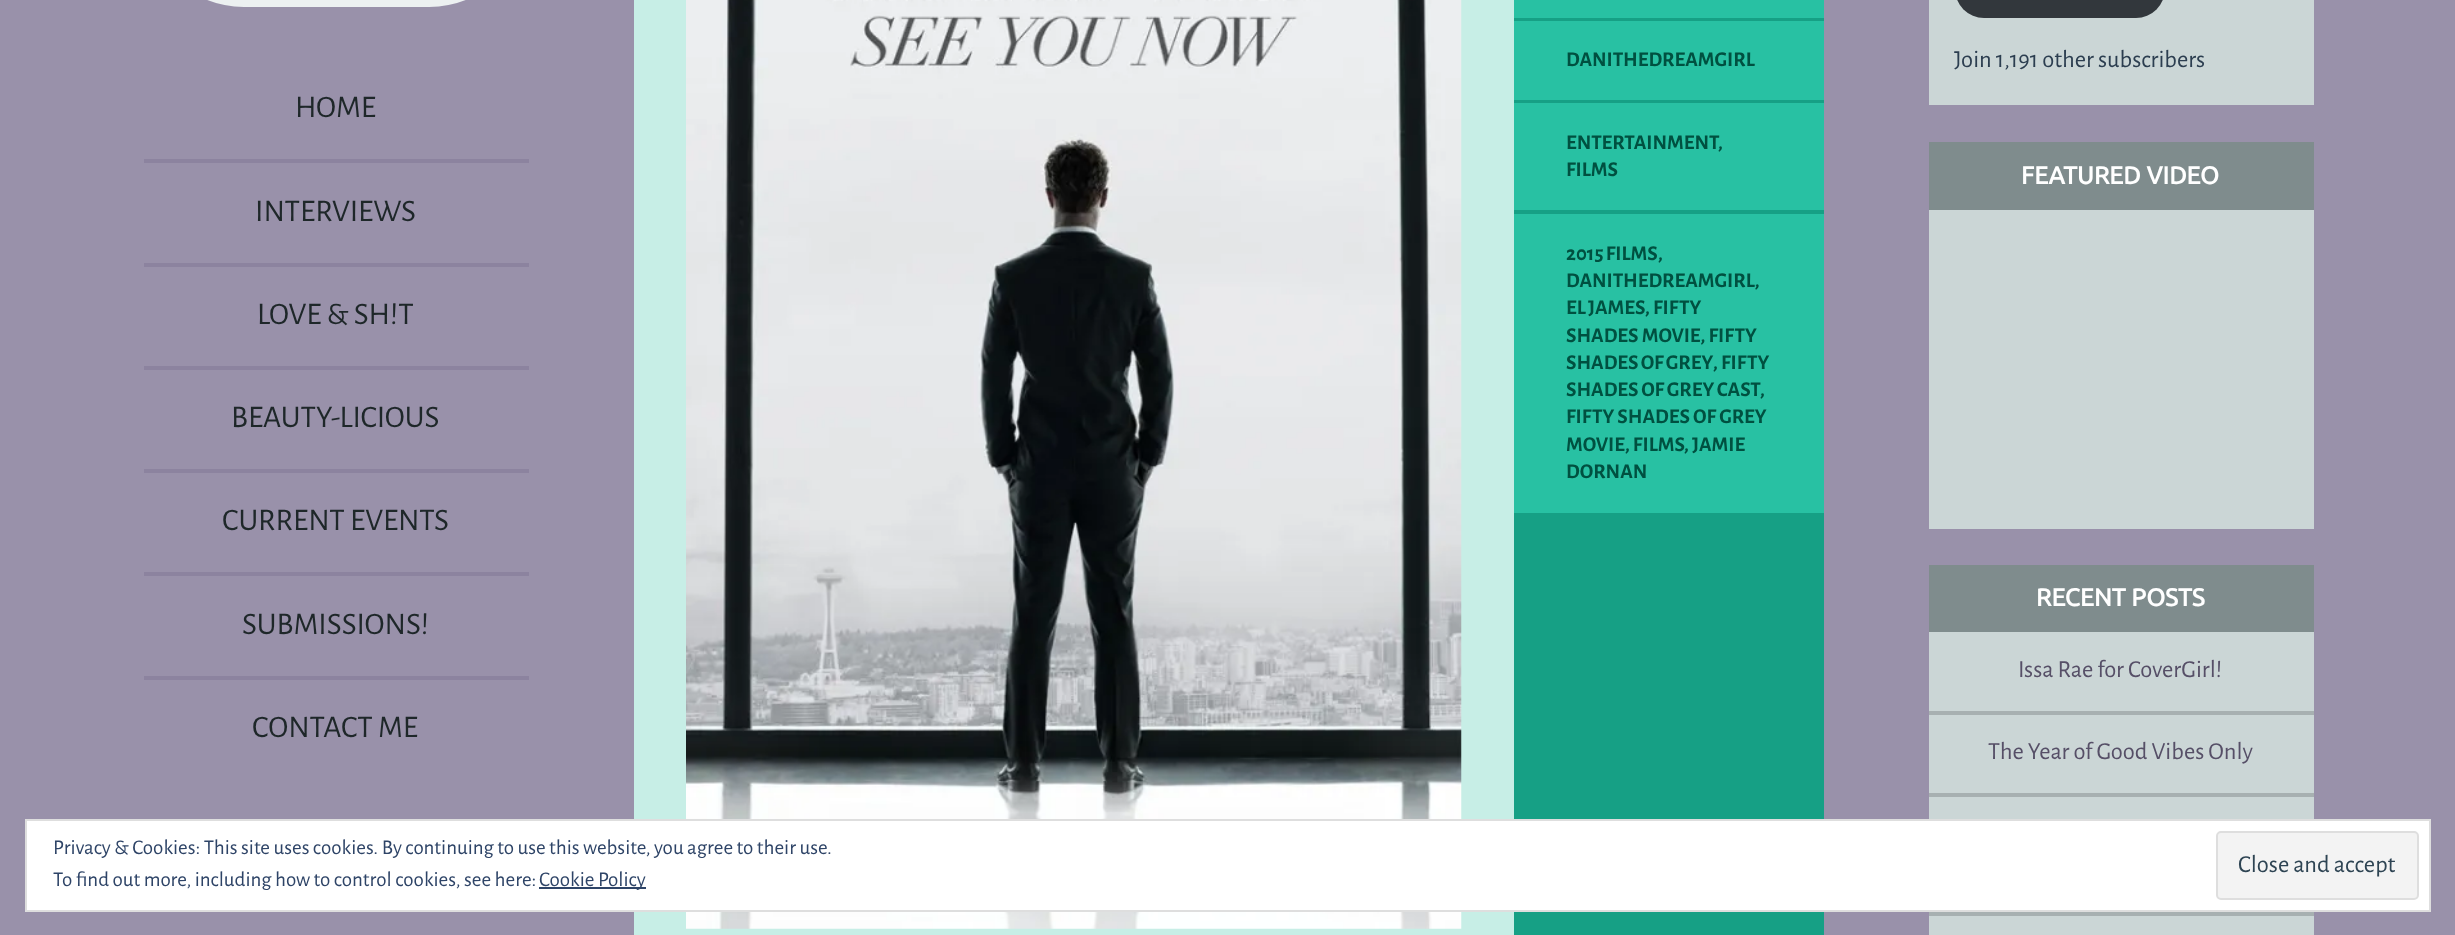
<!DOCTYPE html>
<meta charset="utf-8">
<style>body { margin: 0 } canvas { display: block }</style>
<canvas id="canvas" width="2455" height="935"></canvas>
<script type="module">
  const canvas = document.getElementById("canvas");
  const g = canvas.getContext("2d");
  g.miterLimit = 4;
  g.fontKerning = "normal";
  function drawText(s, x, y, [font, color]) {
    g.font = font;
    g.fillStyle = color;
    g.fillText(s, x, y);
  }
  function fillBox(x, y, w, h, color) {
    g.fillStyle = color;
    g.fillRect(x, y, w, h);
  }
  function fillRounded(x, y, w, h, r, color) {
    g.fillStyle = color;
    g.beginPath();
    g.roundRect(x, y, w, h, r);
    g.fill();
  }
  async function drawPicture(src, x, y, w, h) {
    const img = new Image();
    img.src = src;
    await img.decode();
    g.drawImage(img, x, y, w, h);
  }

  const s1 = ["31.5px Alegreya Sans", "#1E2729"];
  const s2 = ["bold 21px Alegreya Sans", "#005040"];
  const s3 = ["24.5px Alegreya Sans", "#2C3E50"];
  const s4 = ["bold 24.5px Ubuntu", "#FFFFFF"];
  const s5 = ["24.5px Alegreya Sans", "#564F67"];
  const s6 = ["21px Alegreya Sans", "#2E4467"];
  const s7 = ["24.5px Alegreya Sans", "#2E4453"];

  fillBox(0, 0, 2455, 935, "#9991AA");
  fillRounded(144, -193, 385, 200, 192.5, "#ECF0F1");
  fillBox(144, 159, 385, 4, "#8C839F");
  drawText("HOME", 295, 117, s1);
  fillBox(144, 263, 385, 4, "#8C839F");
  drawText("INTERVIEWS", 255, 221, s1);
  fillBox(144, 366, 385, 4, "#8C839F");
  drawText("LOVE & SH!T", 257, 324, s1);
  fillBox(144, 469, 385, 4, "#8C839F");
  drawText("BEAUTY-LICIOUS", 231, 427, s1);
  fillBox(144, 572, 385, 4, "#8C839F");
  drawText("CURRENT EVENTS", 222, 530, s1);
  fillBox(144, 676, 385, 4, "#8C839F");
  drawText("SUBMISSIONS!", 242, 634, s1);
  drawText("CONTACT ME", 252, 737, s1);
  fillBox(634, 0, 880, 935, "#C7EEE6");
  await drawPicture("pic1.png", 686, 0, 776, 929);
  fillBox(1514, 18, 310, 917, "#16A085");
  fillBox(1514, 0, 310, 18, "#28C1A3");
  fillBox(1514, 21, 310, 79, "#28C1A3");
  drawText("DANITHEDREAMGIRL", 1566, 66, s2);
  fillBox(1514, 103, 310, 107, "#28C1A3");
  drawText("ENTERTAINMENT", 1566, 149, s2);
  drawText(",", 1718, 149, s2);
  drawText("FILMS", 1566, 176, s2);
  fillBox(1514, 214, 310, 299, "#28C1A3");
  g.wordSpacing = "-1px";
  drawText("2015 FILMS", 1566, 260, s2);
  g.wordSpacing = "0px";
  drawText(",", 1658, 260, s2);
  drawText("DANITHEDREAMGIRL,", 1566, 287, s2);
  g.wordSpacing = "-1px";
  drawText("EL JAMES", 1566, 314, s2);
  g.wordSpacing = "0px";
  drawText(", FIFTY", 1645, 314, s2);
  drawText("SHADES MOVIE, FIFTY", 1566, 342, s2);
  g.wordSpacing = "-1px";
  drawText("SHADES OF GREY", 1566, 369, s2);
  g.wordSpacing = "0px";
  drawText(", FIFTY", 1713, 369, s2);
  g.wordSpacing = "-0.5px";
  drawText("SHADES OF GREY CAST", 1566, 396, s2);
  g.wordSpacing = "0px";
  drawText(",", 1760, 396, s2);
  drawText("FIFTY SHADES OF GREY", 1566, 423, s2);
  drawText("MOVIE, FILMS", 1566, 451, s2);
  drawText(", JAMIE", 1684, 451, s2);
  drawText("DORNAN", 1566, 478, s2);
  fillBox(1929, 0, 385, 105, "#CBD6D6");
  fillRounded(1955, -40, 210, 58, 39.5, "#32373C");
  drawText("Join 1,191 other subscribers", 1954, 67, s3);
  fillBox(1929, 210, 385, 319, "#CBD6D6");
  fillBox(1929, 142, 385, 68, "#7F8C8D");
  drawText("FEATURED VIDEO", 2021, 184, s4);
  fillBox(1929, 632, 385, 303, "#CBD6D6");
  fillBox(1929, 565, 385, 67, "#7F8C8D");
  drawText("RECENT POSTS", 2036, 606, s4);
  fillBox(1929, 711, 385, 4, "#A7B0B1");
  drawText("Issa Rae for CoverGirl!", 2018, 677, s5);
  fillBox(1929, 793, 385, 4, "#A7B0B1");
  drawText("The Year of Good Vibes Only", 1988, 759, s5);
  fillBox(1929, 912, 385, 4, "#A7B0B1");
  g.fillStyle = "#FFFFFF";
  g.beginPath();
  g.rect(26, 820, 2404, 91);
  g.fill();
  g.strokeStyle = "#DEDEDE";
  g.lineWidth = 2;
  g.stroke();
  drawText("Privacy & Cookies: This site uses cookies. By continuing to use this website, you agree to their use.", 53, 854, s6);
  g.fillStyle = "#F3F3F3";
  g.beginPath();
  g.roundRect(2217, 832, 201, 67, 4);
  g.fill();
  g.stroke();
  drawText("Close and accept", 2238, 872, s7);
  drawText("To find out more, including how to control cookies, see here:", 53, 886, s6);
  fillBox(539, 887, 107, 2, "#2E4467");
  drawText("Cookie Policy", 539, 886, s6);
</script>
